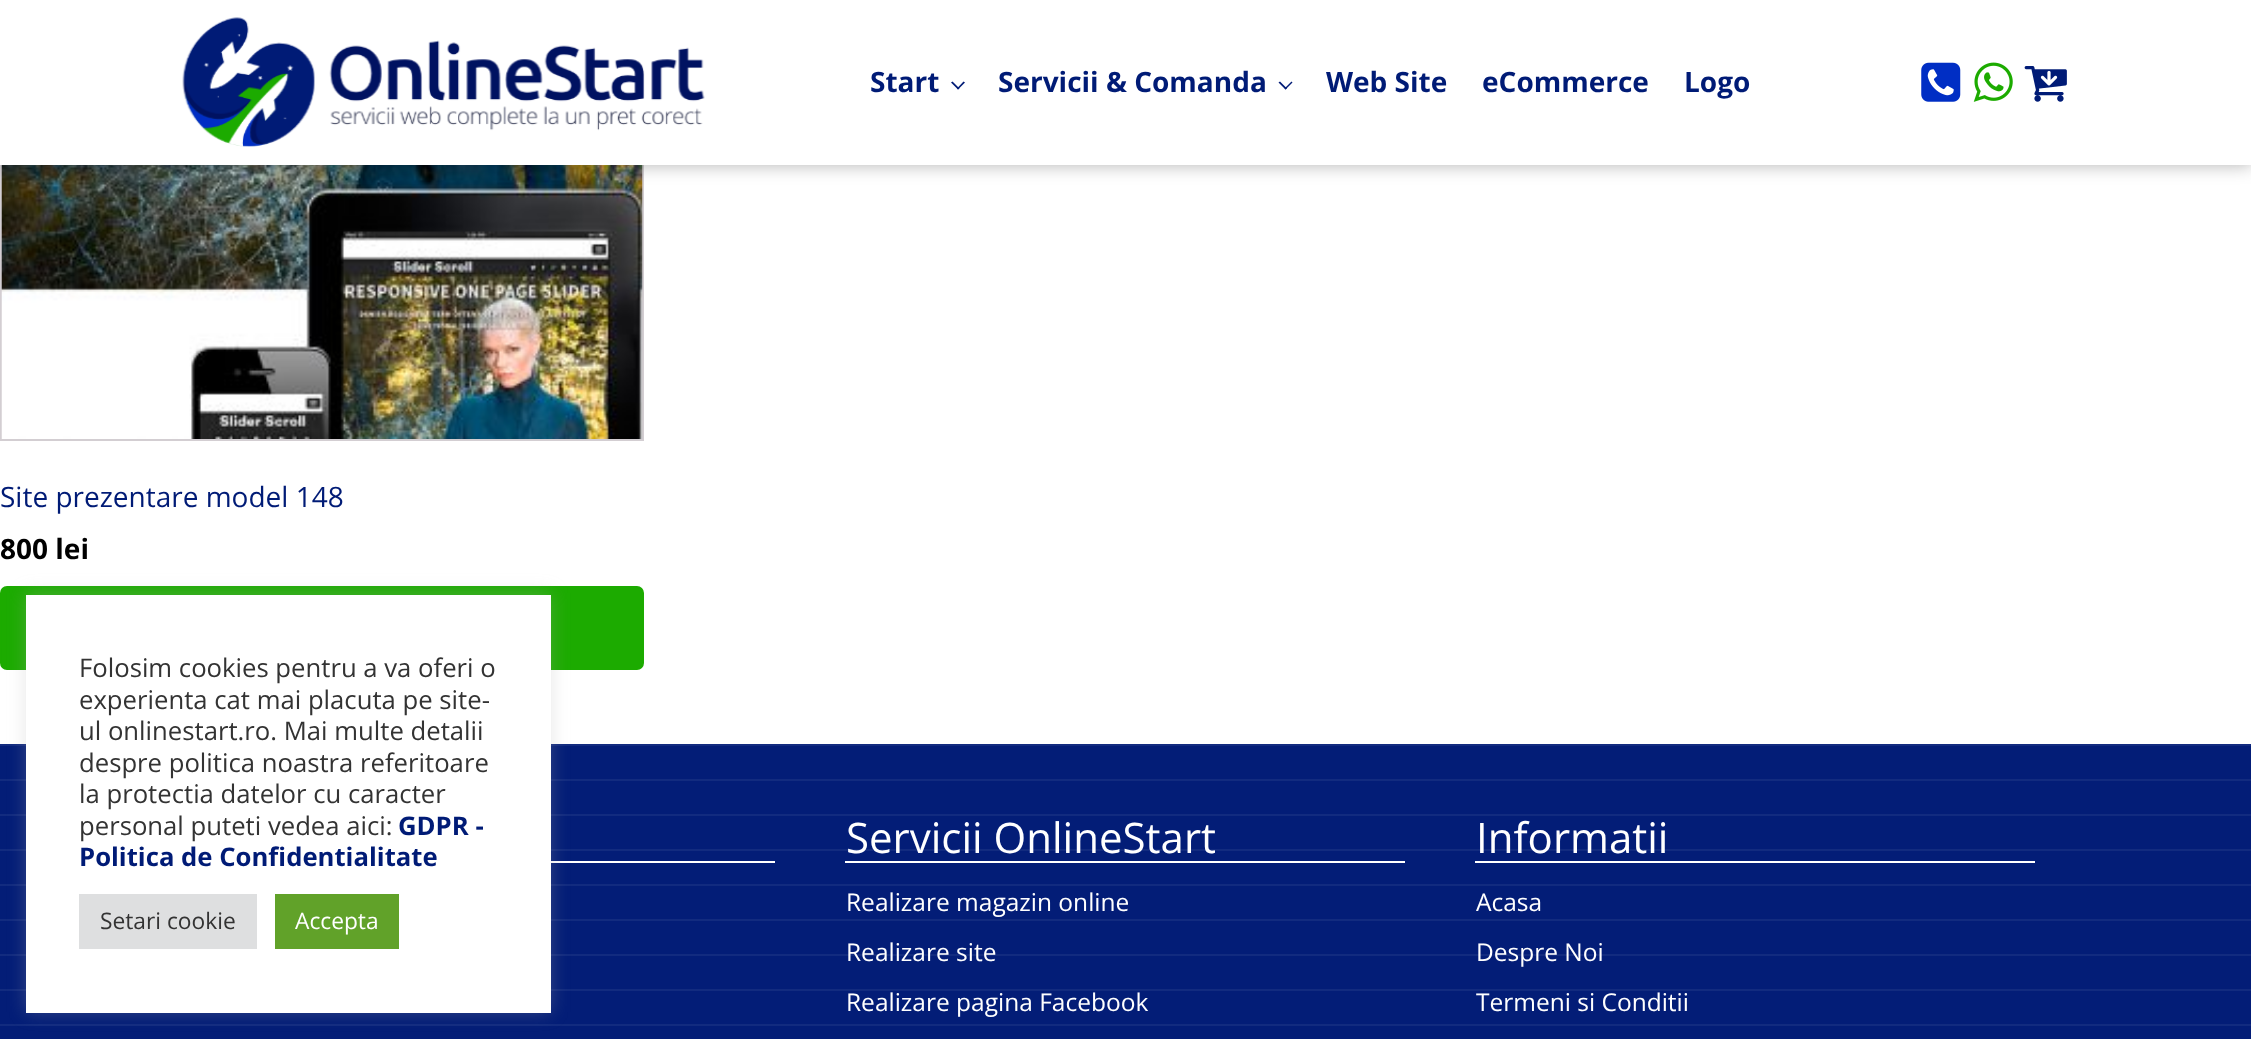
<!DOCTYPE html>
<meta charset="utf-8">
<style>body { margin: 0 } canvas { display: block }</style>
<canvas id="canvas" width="2251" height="1039"></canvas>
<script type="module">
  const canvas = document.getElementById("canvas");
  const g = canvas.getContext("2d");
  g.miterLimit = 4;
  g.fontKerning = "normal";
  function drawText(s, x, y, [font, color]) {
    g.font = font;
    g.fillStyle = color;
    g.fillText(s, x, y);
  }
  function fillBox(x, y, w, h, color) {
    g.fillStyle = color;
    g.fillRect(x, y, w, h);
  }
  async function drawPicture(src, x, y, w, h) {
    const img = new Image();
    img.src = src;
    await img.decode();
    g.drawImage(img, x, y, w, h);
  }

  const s1 = ["bold 28px Open Sans", "#001B76"];
  const s2 = ["28px Open Sans", "#001B76"];
  const s3 = ["bold 28px Open Sans", "#000000"];
  const s4 = ["25.7px Open Sans", "#333333"];
  const s5 = ["bold 25.7px Open Sans", "#001B76"];
  const s6 = ["22.75px Open Sans", "#333333"];
  const s7 = ["22.75px Open Sans", "#FFFFFF"];
  const s8 = ["42px Open Sans", "#FFFFFF"];
  const s9 = ["24.5px Open Sans", "#FFFFFF"];

  fillBox(0, 0, 2251, 1039, "#FFFFFF");
  g.strokeStyle = "#D3CED2";
  g.lineWidth = 2;
  g.strokeRect(1, -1, 642, 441);
  await drawPicture("pic5.png", 1, 165, 642, 274);
  g.fillStyle = "rgba(0, 0, 0, 0.3)";
  g.filter = "blur(9px)";
  g.beginPath();
  g.rect(0, 0, 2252, 165);
  g.fill();
  g.filter = "none";
  fillBox(0, 0, 2251, 165, "#FFFFFF");
  await drawPicture("pic1.png", 182, 17, 523, 130);
  drawText("Start", 870, 92, s1);
  g.beginPath();
  g.moveTo(965, 82.5);
  g.lineTo(958, 89.5);
  g.lineTo(957, 88.5);
  g.lineTo(963.5, 81.5);
  g.closePath();
  g.fill();
  g.beginPath();
  g.moveTo(959.5, 88.5);
  g.lineTo(958, 89.5);
  g.lineTo(951, 82.5);
  g.lineTo(952.5, 81.5);
  g.closePath();
  g.fill();
  drawText("Servicii & Comanda", 998, 92, s1);
  g.beginPath();
  g.moveTo(1292.5, 82.5);
  g.lineTo(1285.5, 89.5);
  g.lineTo(1284.5, 88.5);
  g.lineTo(1291.5, 81.5);
  g.closePath();
  g.fill();
  g.beginPath();
  g.moveTo(1287, 88.5);
  g.lineTo(1285.5, 89.5);
  g.lineTo(1278.5, 82.5);
  g.lineTo(1280, 81.5);
  g.closePath();
  g.fill();
  drawText("Web Site", 1326, 92, s1);
  drawText("eCommerce", 1482, 92, s1);
  drawText("Logo", 1684, 92, s1);
  await drawPicture("pic2.png", 1921, 62, 40, 40);
  await drawPicture("pic3.png", 1973, 62, 40, 40);
  await drawPicture("pic4.png", 2024, 66, 43, 36);
  drawText("Site prezentare model 148", 0, 507, s2);
  drawText("800 lei", 0, 559, s3);
  g.fillStyle = "#1CAB00";
  g.beginPath();
  g.roundRect(1, 587, 642, 82, 6);
  g.fill();
  g.strokeStyle = "#1CAB00";
  g.stroke();
  fillBox(0, 746, 2251, 293, "#031D77");
  fillBox(0, 744, 2251, 2, "#122B7F");
  fillBox(0, 779, 2251, 2, "#122B7F");
  fillBox(0, 814, 2251, 2, "#122B7F");
  fillBox(0, 849, 2251, 2, "#122B7F");
  fillBox(0, 884, 2251, 2, "#122B7F");
  fillBox(0, 919, 2251, 2, "#122B7F");
  fillBox(0, 954, 2251, 2, "#122B7F");
  fillBox(0, 989, 2251, 2, "#122B7F");
  fillBox(0, 1024, 2251, 2, "#122B7F");
  fillBox(551, 861, 224, 2, "#FFFFFF");
  g.fillStyle = "rgba(172, 171, 171, 0.3)";
  g.filter = "blur(9px)";
  g.beginPath();
  g.rect(26, 593, 525, 419);
  g.fill();
  g.filter = "none";
  fillBox(26, 595, 525, 418, "#FFFFFF");
  drawText("Folosim cookies pentru a va oferi o", 79, 677, s4);
  drawText("experienta cat mai placuta pe site-", 79, 709, s4);
  drawText("ul onlinestart.ro. Mai multe detalii", 79, 740, s4);
  drawText("despre politica noastra referitoare", 79, 772, s4);
  drawText("la protectia datelor cu caracter", 79, 803, s4);
  drawText("personal puteti vedea aici:", 79, 835, s4);
  drawText("GDPR -", 398, 835, s5);
  drawText("Politica de Confidentialitate", 79, 866, s5);
  fillBox(79, 894, 178, 55, "#DEDFE0");
  drawText("Setari cookie", 100, 929, s6);
  fillBox(275, 894, 124, 55, "#61A229");
  drawText("Accepta", 295, 929, s7);
  fillBox(845, 861, 560, 2, "#FFFFFF");
  drawText("Servicii OnlineStart", 846, 853, s8);
  drawText("Realizare magazin online", 846, 911, s9);
  drawText("Realizare site", 846, 961, s9);
  drawText("Realizare pagina Facebook", 846, 1011, s9);
  fillBox(1475, 861, 560, 2, "#FFFFFF");
  drawText("Informatii", 1476, 853, s8);
  drawText("Acasa", 1476, 911, s9);
  drawText("Despre Noi", 1476, 961, s9);
  drawText("Termeni si Conditii", 1476, 1011, s9);
</script>
